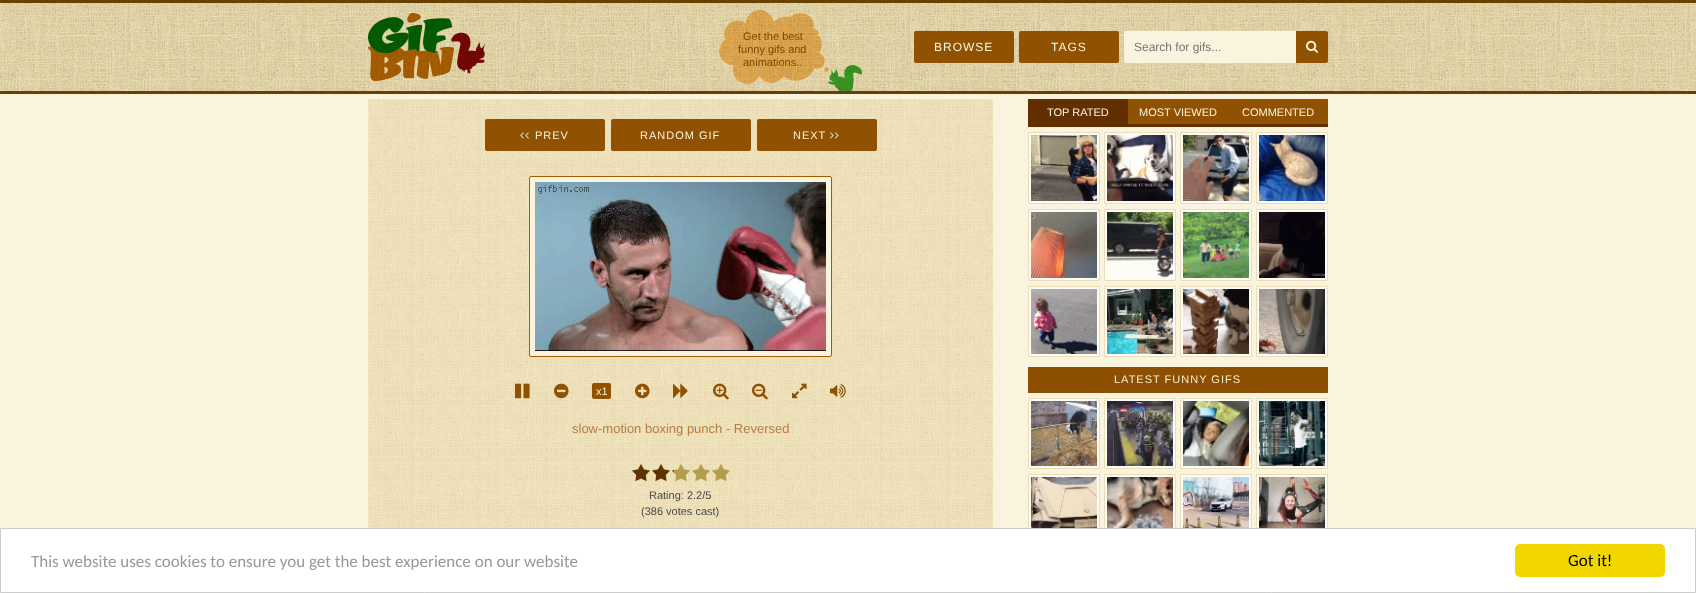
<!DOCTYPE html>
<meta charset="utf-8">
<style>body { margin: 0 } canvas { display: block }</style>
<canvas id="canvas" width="1696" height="593"></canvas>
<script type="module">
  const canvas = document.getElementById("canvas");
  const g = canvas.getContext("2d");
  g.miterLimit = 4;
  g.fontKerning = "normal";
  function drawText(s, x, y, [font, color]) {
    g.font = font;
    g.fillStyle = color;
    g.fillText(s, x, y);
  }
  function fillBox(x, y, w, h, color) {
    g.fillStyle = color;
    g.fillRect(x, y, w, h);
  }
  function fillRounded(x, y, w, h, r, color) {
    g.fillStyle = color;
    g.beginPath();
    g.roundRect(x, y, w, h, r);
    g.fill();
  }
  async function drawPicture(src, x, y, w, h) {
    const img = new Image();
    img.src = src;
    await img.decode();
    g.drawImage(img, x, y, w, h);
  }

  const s1 = ["11px Liberation Sans", "#7F4700"];
  const s2 = ["12px Liberation Sans", "#FAF4DF"];
  const s3 = ["12px Liberation Sans", "#757575"];
  const s4 = ["11px Liberation Sans", "#FAF4DF"];
  const s5 = ["13px Liberation Sans", "#B77D43"];
  const s6 = ["11px Liberation Sans", "#4A4A4A"];
  const s7 = ["11px Liberation Sans", "#F7EFD4"];
  const s8 = ["17px Carlito", "#999999"];
  const s9 = ["17px Carlito", "#000000"];

  fillBox(0, 0, 1696, 593, "#FAF4DF");
  await drawPicture("pic1.png", 0, 3, 1696, 88);
  fillBox(0, 0, 1696, 3, "#684100");
  fillBox(0, 91, 1696, 3, "#684100");
  await drawPicture("pic2.png", 368, 13, 117, 68);
  await drawPicture("pic3.png", 719, 10, 143, 81);
  drawText("Get the best", 743, 40, s1);
  drawText("funny gifs and", 738, 53, s1);
  drawText("animations..", 743, 66, s1);
  fillRounded(914, 31, 100, 32, 2, "#905100");
  g.letterSpacing = "1px";
  drawText("BROWSE", 934, 51, s2);
  fillRounded(1019, 31, 100, 32, 2, "#905100");
  drawText("TAGS", 1051, 51, s2);
  g.beginPath();
  g.roundRect(1124, 31, 172, 32, [2, 0, 0, 2]);
  g.fill();
  g.letterSpacing = "0px";
  drawText("Search for gifs...", 1134, 51, s3);
  g.fillStyle = "#905100";
  g.beginPath();
  g.roundRect(1296, 31, 32, 32, [0, 2, 2, 0]);
  g.fill();
  await drawPicture("pic4.png", 1306, 40, 12, 13);
  await drawPicture("pic5.png", 368, 99, 625, 429);
  fillRounded(485, 119, 120, 32, 2, "#905100");
  await drawPicture("pic6.png", 520, 132, 9, 7);
  g.letterSpacing = "1px";
  drawText("PREV", 535, 139, s4);
  fillRounded(611, 119, 140, 32, 2, "#905100");
  drawText("RANDOM GIF", 640, 139, s4);
  fillRounded(757, 119, 120, 32, 2, "#905100");
  drawText("NEXT", 793, 139, s4);
  await drawPicture("pic7.png", 830, 132, 9, 7);
  g.beginPath();
  g.roundRect(529.5, 176.5, 302, 180, 1.5);
  g.fill();
  g.strokeStyle = "#A45E00";
  g.stroke();
  await drawPicture("pic8.png", 535, 182, 291, 169);
  await drawPicture("pic9.png", 515, 383, 15, 16);
  await drawPicture("pic10.png", 554, 383, 15, 16);
  fillRounded(592, 383, 19, 16, 2, "#905100");
  g.letterSpacing = "0px";
  drawText("x1", 596, 395, s4);
  await drawPicture("pic11.png", 635, 383, 15, 16);
  await drawPicture("pic12.png", 673, 383, 15, 16);
  await drawPicture("pic13.png", 713, 383, 16, 17);
  await drawPicture("pic14.png", 752, 383, 16, 17);
  await drawPicture("pic15.png", 792, 383, 15, 16);
  await drawPicture("pic16.png", 830, 384, 16, 14);
  drawText("slow-motion boxing punch - Reversed", 572, 433, s5);
  await drawPicture("pic17.png", 635, 464, 95, 18);
  await drawPicture("pic18.png", 632, 464, 42, 17);
  drawText("Rating: 2.2/5", 649, 499, s6);
  drawText("(386 votes cast)", 641, 515, s6);
  fillBox(1028, 124, 300, 3, "#622F00");
  fillBox(1028, 99, 100, 25, "#622F00");
  drawText("TOP RATED", 1047, 116, s4);
  fillBox(1128, 99, 200, 25, "#905100");
  drawText("MOST VIEWED", 1139, 116, s4);
  drawText("COMMENTED", 1242, 116, s4);
  g.fillStyle = "#FDFBF6";
  g.beginPath();
  g.rect(1028.5, 132.5, 71, 71);
  g.fill();
  g.strokeStyle = "#EBDDB5";
  g.stroke();
  await drawPicture("pic19.png", 1031, 135, 66, 66);
  g.beginPath();
  g.rect(1104.5, 132.5, 71, 71);
  g.fill();
  g.stroke();
  await drawPicture("pic20.png", 1107, 135, 66, 66);
  g.beginPath();
  g.rect(1180.5, 132.5, 71, 71);
  g.fill();
  g.stroke();
  await drawPicture("pic21.png", 1183, 135, 66, 66);
  g.beginPath();
  g.rect(1256.5, 132.5, 71, 71);
  g.fill();
  g.stroke();
  await drawPicture("pic22.png", 1259, 135, 66, 66);
  g.beginPath();
  g.rect(1028.5, 209.5, 71, 71);
  g.fill();
  g.stroke();
  await drawPicture("pic23.png", 1031, 212, 66, 66);
  g.beginPath();
  g.rect(1104.5, 209.5, 71, 71);
  g.fill();
  g.stroke();
  await drawPicture("pic24.png", 1107, 212, 66, 66);
  g.beginPath();
  g.rect(1180.5, 209.5, 71, 71);
  g.fill();
  g.stroke();
  await drawPicture("pic25.png", 1183, 212, 66, 66);
  g.beginPath();
  g.rect(1256.5, 209.5, 71, 71);
  g.fill();
  g.stroke();
  await drawPicture("pic26.png", 1259, 212, 66, 66);
  g.beginPath();
  g.rect(1028.5, 286.5, 71, 70);
  g.fill();
  g.stroke();
  await drawPicture("pic27.png", 1031, 289, 66, 65);
  g.beginPath();
  g.rect(1104.5, 286.5, 71, 70);
  g.fill();
  g.stroke();
  await drawPicture("pic28.png", 1107, 289, 66, 65);
  g.beginPath();
  g.rect(1180.5, 286.5, 71, 70);
  g.fill();
  g.stroke();
  await drawPicture("pic29.png", 1183, 289, 66, 65);
  g.beginPath();
  g.rect(1256.5, 286.5, 71, 70);
  g.fill();
  g.stroke();
  await drawPicture("pic30.png", 1259, 289, 66, 65);
  fillBox(1028, 367, 300, 26, "#8D4F00");
  g.letterSpacing = "1px";
  drawText("LATEST FUNNY GIFS", 1114, 383, s7);
  g.fillStyle = "#FDFBF6";
  g.beginPath();
  g.rect(1028.5, 398.5, 71, 70);
  g.fill();
  g.stroke();
  await drawPicture("pic31.png", 1031, 401, 66, 65);
  g.beginPath();
  g.rect(1104.5, 398.5, 71, 70);
  g.fill();
  g.stroke();
  await drawPicture("pic32.png", 1107, 401, 66, 65);
  g.beginPath();
  g.rect(1180.5, 398.5, 71, 70);
  g.fill();
  g.stroke();
  await drawPicture("pic33.png", 1183, 401, 66, 65);
  g.beginPath();
  g.rect(1256.5, 398.5, 71, 70);
  g.fill();
  g.stroke();
  await drawPicture("pic34.png", 1259, 401, 66, 65);
  fillBox(1029, 475, 70, 53, "#FDFBF6");
  g.strokeRect(1028.5, 474.5, 71, 71);
  await drawPicture("pic35.png", 1031, 477, 66, 51);
  fillBox(1105, 475, 70, 53, "#FDFBF6");
  g.strokeRect(1104.5, 474.5, 71, 71);
  await drawPicture("pic36.png", 1107, 477, 66, 51);
  fillBox(1181, 475, 70, 53, "#FDFBF6");
  g.strokeRect(1180.5, 474.5, 71, 71);
  await drawPicture("pic37.png", 1183, 477, 66, 51);
  fillBox(1257, 475, 70, 53, "#FDFBF6");
  g.strokeRect(1256.5, 474.5, 71, 71);
  await drawPicture("pic38.png", 1259, 477, 66, 51);
  g.fillStyle = "#FFFFFF";
  g.beginPath();
  g.rect(0.5, 528.5, 1695, 64);
  g.fill();
  g.strokeStyle = "#CCCCCC";
  g.stroke();
  g.letterSpacing = "0px";
  drawText("This website uses cookies to ensure you get the best experience on our website", 31, 567, s8);
  fillRounded(1515, 544, 150, 33, 5, "#F1D600");
  drawText("Got it!", 1568, 566, s9);
</script>
